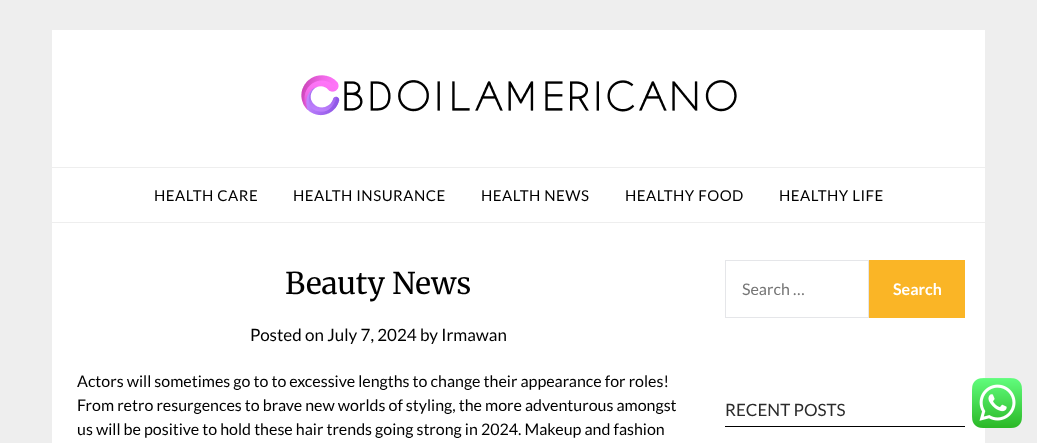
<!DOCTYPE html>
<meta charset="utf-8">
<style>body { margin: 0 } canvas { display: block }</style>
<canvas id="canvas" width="1037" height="443"></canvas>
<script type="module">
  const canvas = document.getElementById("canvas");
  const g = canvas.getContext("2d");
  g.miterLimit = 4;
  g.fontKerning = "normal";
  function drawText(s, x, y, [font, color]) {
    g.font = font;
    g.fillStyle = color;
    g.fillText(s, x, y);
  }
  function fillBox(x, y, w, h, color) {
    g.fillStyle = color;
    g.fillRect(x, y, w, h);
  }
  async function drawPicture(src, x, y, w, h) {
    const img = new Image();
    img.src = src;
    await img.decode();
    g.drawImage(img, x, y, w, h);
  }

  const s1 = ["15px Lato", "#000000"];
  const s2 = ["30px Merriweather", "#000000"];
  const s3 = ["17px Lato", "#000000"];
  const s4 = ["16px Lato", "#000000"];
  const s5 = ["16px Lato", "#757575"];
  const s6 = ["bold 16px Lato", "#FFFFFF"];
  const s7 = ["17px Lato", "#2B2B2B"];

  fillBox(0, 0, 1037, 443, "#EEEEEE");
  fillBox(52, 30, 933, 137, "#FFFFFF");
  await drawPicture("pic1.png", 301, 75, 436, 41);
  fillBox(52, 168, 933, 54, "#FFFFFF");
  g.letterSpacing = "0.5px";
  drawText("HEALTH CARE", 154, 201, s1);
  drawText("HEALTH INSURANCE", 293, 201, s1);
  drawText("HEALTH NEWS", 481, 201, s1);
  drawText("HEALTHY FOOD", 625, 201, s1);
  drawText("HEALTHY LIFE", 779, 201, s1);
  fillBox(52, 223, 933, 220, "#FFFFFF");
  g.letterSpacing = "0px";
  drawText("Beauty News", 285, 294, s2);
  drawText("Posted on July 7, 2024 by Irmawan", 250, 341, s3);
  drawText("Actors will sometimes go to to excessive lengths to change their appearance for roles!", 77, 387, s4);
  drawText("From retro resurgences to brave new worlds of styling, the more adventurous amongst", 77, 411, s4);
  drawText("us will be positive to hold these hair trends going strong in 2024. Makeup and fashion", 77, 435, s4);
  g.strokeStyle = "#E5E6E9";
  g.strokeRect(725.5, 260.5, 143, 57);
  drawText("Search …", 742, 295, s5);
  fillBox(869, 260, 96, 58, "#FAB526");
  drawText("Search", 893, 295, s6);
  fillBox(725, 426, 240, 1, "#000000");
  drawText("RECENT POSTS", 725, 416, s7);
  await drawPicture("pic2.png", 972, 378, 50, 50);
</script>
